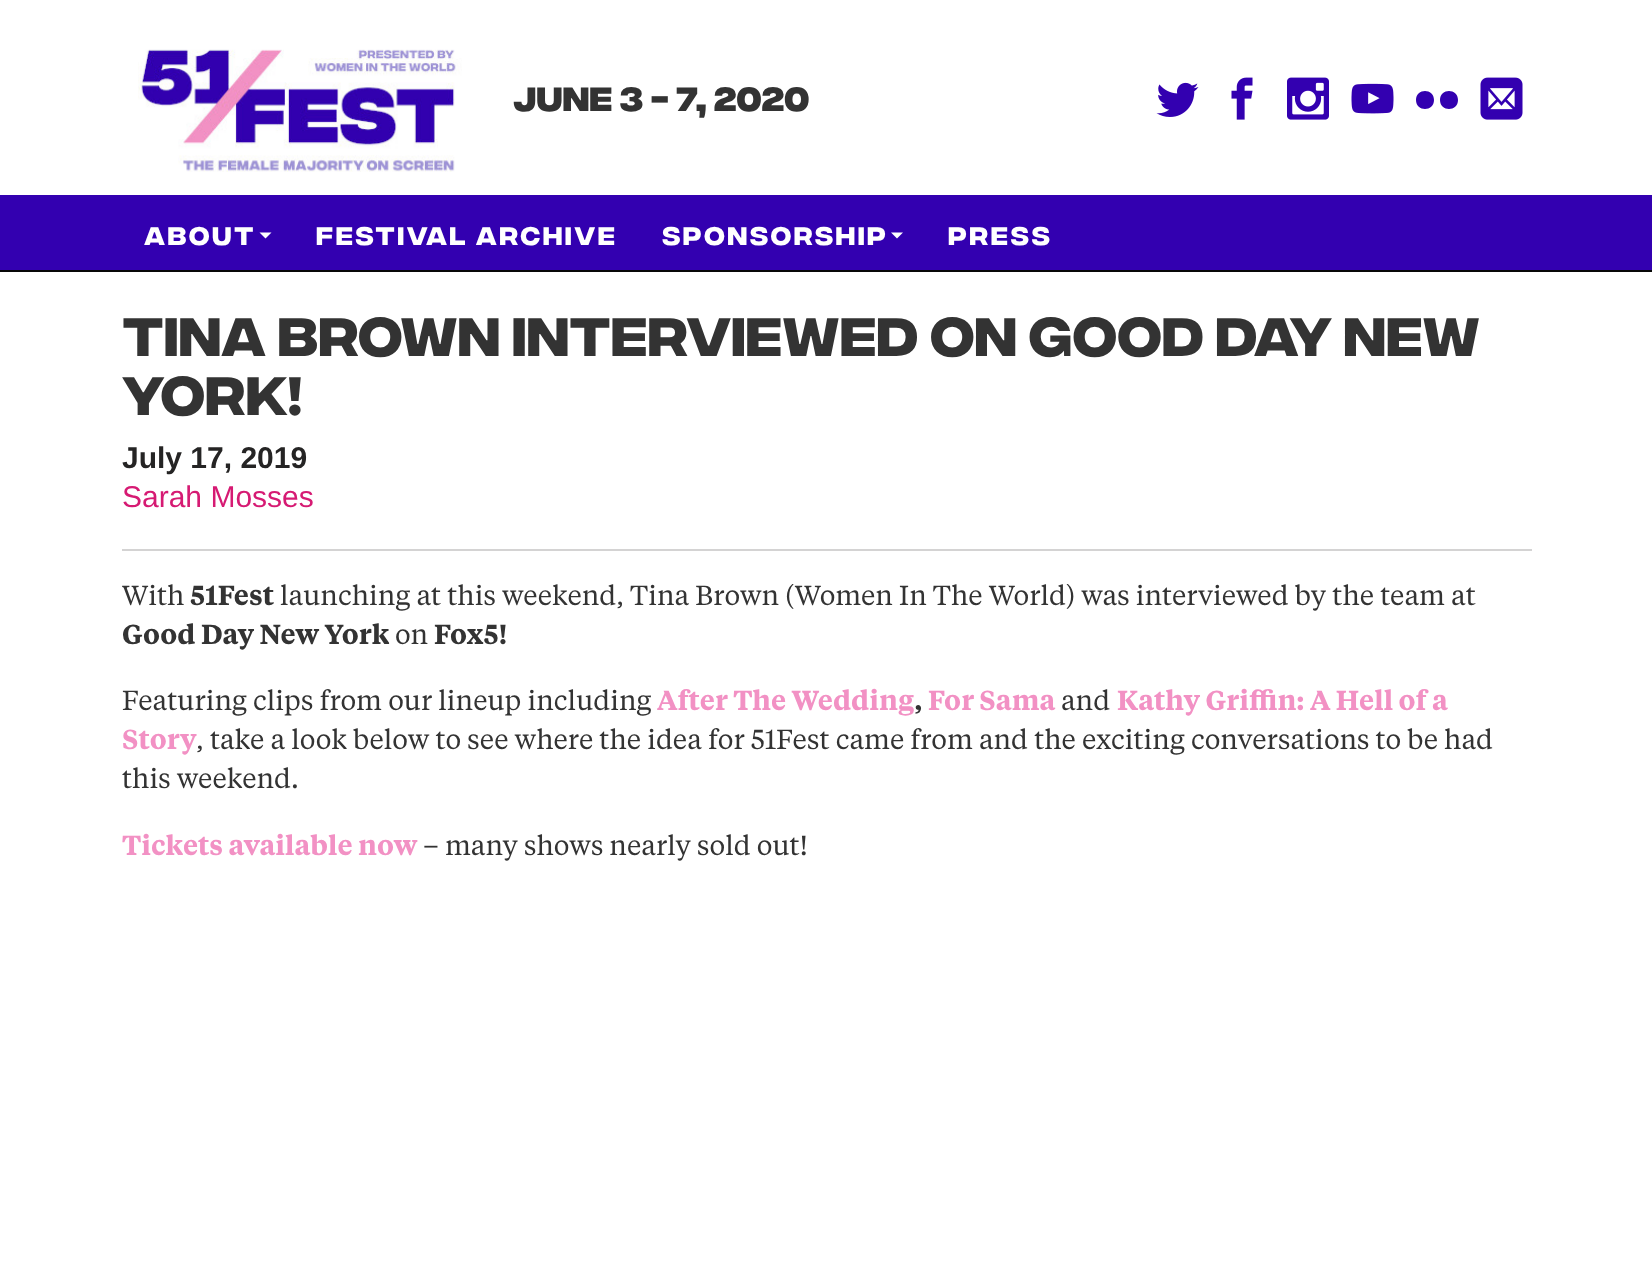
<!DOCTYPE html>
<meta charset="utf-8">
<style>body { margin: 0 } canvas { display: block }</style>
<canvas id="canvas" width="1652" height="1270"></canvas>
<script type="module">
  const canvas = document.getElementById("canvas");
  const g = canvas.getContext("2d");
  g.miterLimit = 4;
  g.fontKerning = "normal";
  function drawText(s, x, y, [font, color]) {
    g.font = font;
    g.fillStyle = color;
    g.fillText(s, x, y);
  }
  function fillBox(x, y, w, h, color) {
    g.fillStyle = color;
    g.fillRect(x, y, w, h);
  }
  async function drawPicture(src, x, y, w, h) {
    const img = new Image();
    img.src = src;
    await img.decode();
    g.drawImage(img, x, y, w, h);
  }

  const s1 = ["bold 33.5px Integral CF", "#333333"];
  const s2 = ["600 25.25px Integral CF", "#FFFFFF"];
  const s3 = ["600 54px Integral CF", "#333333"];
  const s4 = ["bold 30px Liberation Sans", "#252424"];
  const s5 = ["30px Liberation Sans", "#D61A73"];
  const s6 = ["27.3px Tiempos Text", "#333333"];
  const s7 = ["600 27.3px Tiempos Text", "#333333"];
  const s8 = ["600 27.3px Tiempos Text", "#F291C4"];

  fillBox(0, 0, 1652, 1270, "#FFFFFF");
  await drawPicture("pic1.png", 138, 49, 324, 123);
  drawText("June 3 - 7, 2020", 513, 111, s1);
  await drawPicture("pic2.png", 1156, 82, 43, 35);
  await drawPicture("pic3.png", 1231, 77, 22, 43);
  await drawPicture("pic4.png", 1287, 77, 42, 43);
  await drawPicture("pic5.png", 1351, 83, 43, 31);
  g.fillStyle = "#3300B0";
  g.beginPath();
  g.moveTo(1416, 100);
  g.bezierCurveTo(1416, 88, 1434, 88, 1434, 100);
  g.bezierCurveTo(1434, 112, 1416, 112, 1416, 100);
  g.closePath();
  g.moveTo(1440, 100);
  g.bezierCurveTo(1440, 88, 1458, 88, 1458, 100);
  g.bezierCurveTo(1458, 112, 1440, 112, 1440, 100);
  g.closePath();
  g.fill();
  await drawPicture("pic6.png", 1480, 77, 43, 43);
  fillBox(0, 195, 1652, 75, "#3300B0");
  fillBox(0, 270, 1652, 2, "#080808");
  g.letterSpacing = "2.5px";
  drawText("ABOUT", 144, 245, s2);
  g.beginPath();
  g.moveTo(259.5, 232.5);
  g.lineTo(271.5, 232.5);
  g.lineTo(265.5, 238.5);
  g.closePath();
  g.fill();
  drawText("FESTIVAL ARCHIVE", 316, 245, s2);
  drawText("SPONSORSHIP", 662, 245, s2);
  g.beginPath();
  g.moveTo(891, 232.5);
  g.lineTo(903, 232.5);
  g.lineTo(897, 238.5);
  g.closePath();
  g.fill();
  drawText("PRESS", 948, 245, s2);
  g.letterSpacing = "0px";
  drawText("Tina Brown interviewed on Good Day New", 122, 356, s3);
  drawText("York!", 122, 415, s3);
  fillBox(122, 549, 1410, 2, "#D4D3D3");
  drawText("July 17, 2019", 122, 468, s4);
  drawText("Sarah Mosses", 122, 507, s5);
  drawText("With", 122, 605, s6);
  drawText("51Fest", 190, 605, s7);
  drawText("launching at this weekend, Tina Brown (Women In The World) was interviewed by the team at", 280, 605, s6);
  drawText("Good Day New York", 122, 644, s7);
  drawText("on", 395, 644, s6);
  drawText("Fox5!", 434, 644, s7);
  drawText("Featuring clips from our lineup including", 122, 710, s6);
  drawText("After The Wedding", 657, 710, s8);
  drawText(",", 914, 710, s7);
  drawText("For Sama", 928, 710, s8);
  drawText("and", 1061, 710, s6);
  drawText("Kathy Griffin: A Hell of a", 1117, 710, s8);
  drawText("Story", 122, 749, s8);
  drawText(", take a look below to see where the idea for 51Fest came from and the exciting conversations to be had", 196, 749, s6);
  drawText("this weekend.", 122, 788, s6);
  drawText("Tickets available now", 122, 855, s8);
  drawText("– many shows nearly sold out!", 423, 855, s6);
</script>
